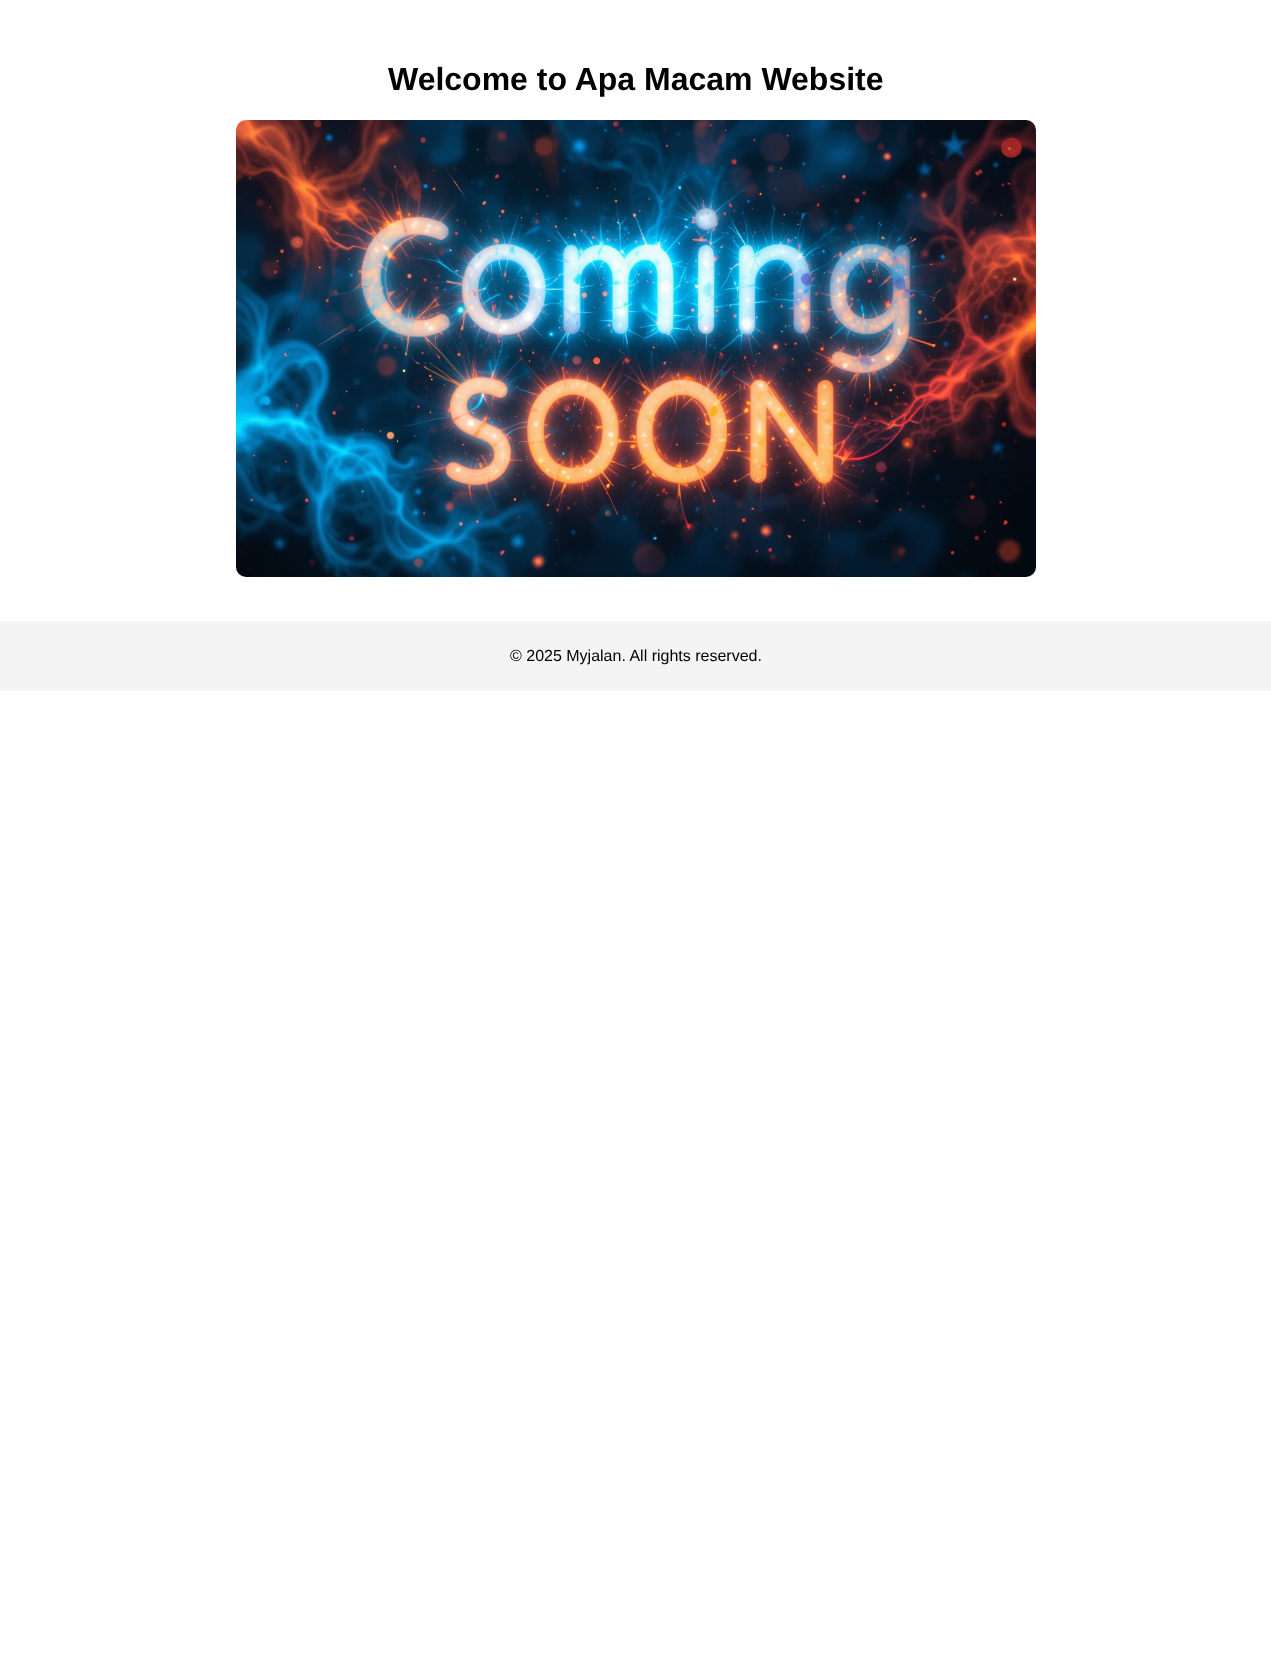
<!DOCTYPE html>
<meta charset="utf-8">
<style>body { margin: 0 } canvas { display: block }</style>
<canvas id="canvas" width="1271" height="1662"></canvas>
<script type="module">
  const canvas = document.getElementById("canvas");
  const g = canvas.getContext("2d");
  g.miterLimit = 4;
  g.fontKerning = "normal";
  function drawText(s, x, y, [font, color]) {
    g.font = font;
    g.fillStyle = color;
    g.fillText(s, x, y);
  }
  function fillBox(x, y, w, h, color) {
    g.fillStyle = color;
    g.fillRect(x, y, w, h);
  }
  async function drawPicture(src, x, y, w, h) {
    const img = new Image();
    img.src = src;
    await img.decode();
    g.drawImage(img, x, y, w, h);
  }

  const s1 = ["bold 32px Liberation Sans", "#000000"];
  const s2 = ["16px Liberation Sans", "#000000"];

  fillBox(0, 0, 1271, 1662, "#FFFFFF");
  drawText("Welcome to Apa Macam Website", 388, 90, s1);
  await drawPicture("pic1.png", 236, 120, 800, 457);
  fillBox(0, 621, 1271, 70, "#F4F4F4");
  drawText("© 2025 Myjalan. All rights reserved.", 510, 661, s2);
</script>
